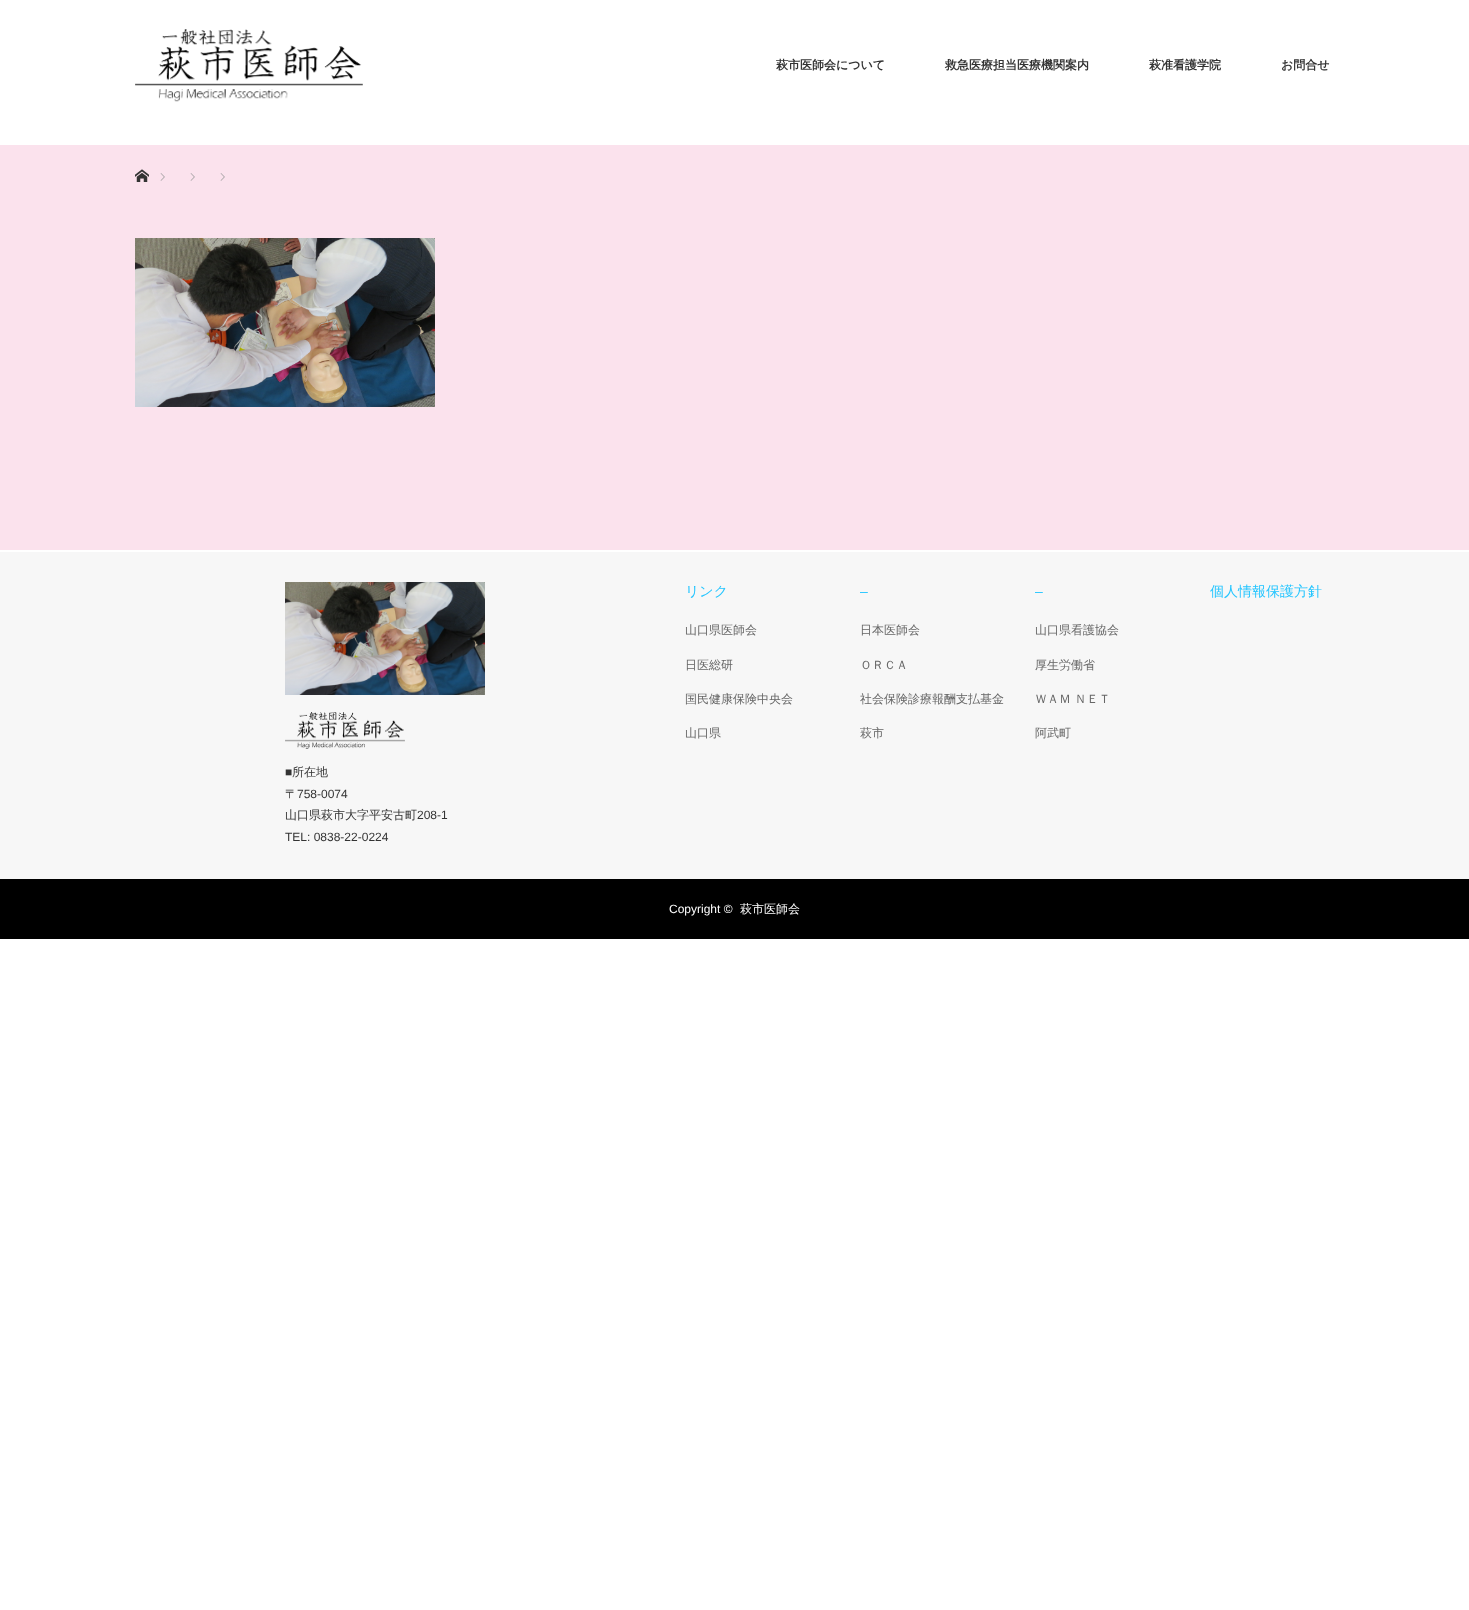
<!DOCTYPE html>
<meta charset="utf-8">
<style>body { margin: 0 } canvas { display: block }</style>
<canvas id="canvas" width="1469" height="1610"></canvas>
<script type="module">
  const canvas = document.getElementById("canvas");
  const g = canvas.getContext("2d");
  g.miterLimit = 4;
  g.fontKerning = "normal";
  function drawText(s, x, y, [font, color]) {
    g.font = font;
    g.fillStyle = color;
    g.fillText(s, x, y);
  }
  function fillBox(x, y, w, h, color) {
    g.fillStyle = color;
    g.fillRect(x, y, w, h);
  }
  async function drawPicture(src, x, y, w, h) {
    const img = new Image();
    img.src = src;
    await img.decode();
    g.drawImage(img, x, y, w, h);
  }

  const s1 = ["bold 12px WenQuanYi Zen Hei", "#333333"];
  const s2 = ["500 14px WenQuanYi Zen Hei", "#24C5FF"];
  const s3 = ["500 12px WenQuanYi Zen Hei", "#666666"];
  const s4 = ["14px Liberation Sans", "#24C5FF"];
  const s5 = ["12px Liberation Sans", "#333333"];
  const s6 = ["500 12px WenQuanYi Zen Hei", "#333333"];
  const s7 = ["12px Liberation Sans", "#FFFFFF"];
  const s8 = ["500 12px WenQuanYi Zen Hei", "#FFFFFF"];

  fillBox(0, 0, 1469, 1610, "#FFFFFF");
  await drawPicture("pic1.png", 135, 29, 228, 73);
  drawText("萩市医師会について", 776, 69, s1);
  drawText("救急医療担当医療機関案内", 945, 69, s1);
  drawText("萩准看護学院", 1149, 69, s1);
  drawText("お問合せ", 1281, 69, s1);
  fillBox(0, 145, 1469, 405, "#FBE2ED");
  await drawPicture("pic2.png", 135, 169, 14, 13);
  await drawPicture("pic3.png", 160, 173, 5, 8);
  await drawPicture("pic3.png", 190, 173, 5, 8);
  await drawPicture("pic3.png", 220, 173, 5, 8);
  await drawPicture("pic4.png", 135, 238, 300, 169);
  fillBox(0, 552, 1469, 327, "#F7F7F7");
  drawText("リンク", 685, 596, s2);
  drawText("山口県医師会", 685, 634, s3);
  drawText("日医総研", 685, 669, s3);
  drawText("国民健康保険中央会", 685, 703, s3);
  drawText("山口県", 685, 737, s3);
  drawText("–", 860, 596, s4);
  drawText("日本医師会", 860, 634, s3);
  drawText("ＯＲＣＡ", 860, 669, s3);
  drawText("社会保険診療報酬支払基金", 860, 703, s3);
  drawText("萩市", 860, 737, s3);
  drawText("–", 1035, 596, s4);
  drawText("山口県看護協会", 1035, 634, s3);
  drawText("厚生労働省", 1035, 669, s3);
  drawText("ＷＡＭ ＮＥＴ", 1035, 703, s3);
  drawText("阿武町", 1035, 737, s3);
  drawText("個人情報保護方針", 1210, 596, s2);
  await drawPicture("pic5.png", 285, 582, 200, 113);
  await drawPicture("pic6.png", 285, 712, 120, 37);
  drawText("■", 285, 776, s5);
  drawText("所在地", 292, 776, s6);
  drawText("〒", 285, 798, s6);
  drawText("758-0074", 297, 798, s5);
  drawText("山口県萩市大字平安古町", 285, 819, s6);
  drawText("208-1", 417, 819, s5);
  drawText("TEL: 0838-22-0224", 285, 841, s5);
  fillBox(0, 879, 1469, 60, "#000000");
  drawText("Copyright ©", 669, 913, s7);
  drawText("萩市医師会", 740, 913, s8);
</script>
